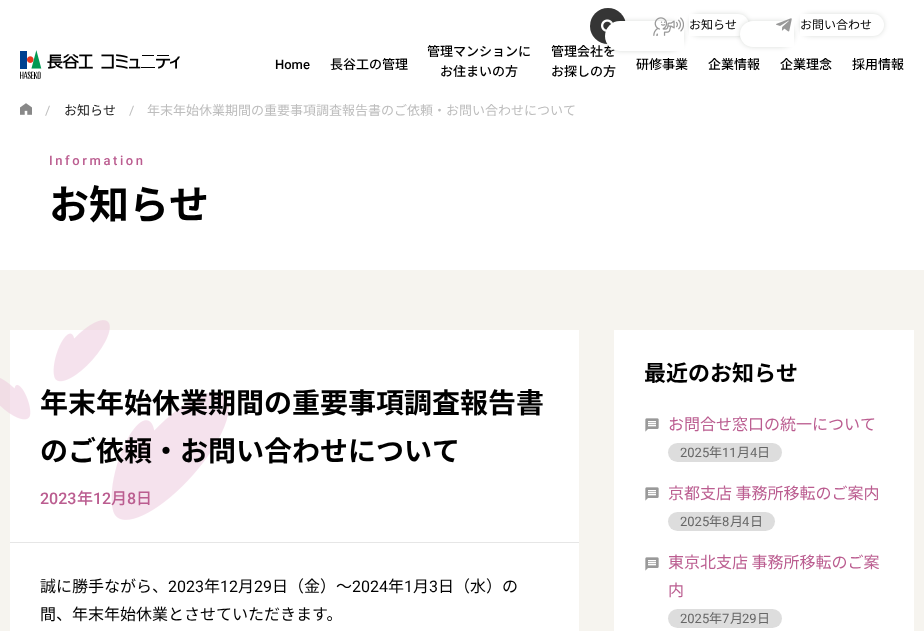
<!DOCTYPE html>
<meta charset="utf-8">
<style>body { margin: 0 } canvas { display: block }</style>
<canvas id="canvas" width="924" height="631"></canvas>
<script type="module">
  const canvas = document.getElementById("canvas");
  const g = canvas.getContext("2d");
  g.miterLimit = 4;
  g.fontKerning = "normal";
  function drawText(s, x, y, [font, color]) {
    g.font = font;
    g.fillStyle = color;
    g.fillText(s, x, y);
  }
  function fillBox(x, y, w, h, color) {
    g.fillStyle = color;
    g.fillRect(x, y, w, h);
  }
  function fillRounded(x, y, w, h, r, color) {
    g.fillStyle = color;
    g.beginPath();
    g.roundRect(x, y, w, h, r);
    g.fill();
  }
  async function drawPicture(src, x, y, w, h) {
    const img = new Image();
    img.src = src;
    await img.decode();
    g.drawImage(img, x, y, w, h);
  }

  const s1 = ["500 13px Noto Sans JP", "#000000"];
  const s2 = ["12px Noto Sans JP", "#000000"];
  const s3 = ["500 13px Roboto", "#000000"];
  const s4 = ["13px Roboto", "#BDBDBD"];
  const s5 = ["13px Noto Sans JP", "#222222"];
  const s6 = ["13px Noto Sans JP", "#BDBDBD"];
  const s7 = ["500 13px Roboto", "#BB5D90"];
  const s8 = ["bold 40px Noto Sans JP", "#000000"];
  const s9 = ["bold 28px Noto Sans JP", "#000000"];
  const s10 = ["500 16px Roboto", "#BB5D90"];
  const s11 = ["500 16px Noto Sans JP", "#BB5D90"];
  const s12 = ["16px Noto Sans JP", "#000000"];
  const s13 = ["16px Roboto", "#000000"];
  const s14 = ["bold 22px Noto Sans JP", "#000000"];
  const s15 = ["16px Noto Sans JP", "#BB5D90"];
  const s16 = ["13px Roboto", "#666666"];
  const s17 = ["13px Noto Sans JP", "#666666"];

  fillBox(0, 0, 924, 631, "#FFFFFF");
  g.fillStyle = "#353535";
  g.beginPath();
  g.arc(608, 26, 18, 0, Math.PI * 2);
  g.fill();
  await drawPicture("pic1.png", 601, 19, 12, 13);
  g.fillStyle = "rgba(5, 23, 0, 0.15)";
  g.filter = "blur(2.5px)";
  g.beginPath();
  g.roundRect(605, 21, 79, 30, 15);
  g.fill();
  g.filter = "none";
  drawText("管理会社を", 551, 56, s1);
  g.fillStyle = "#FFFFFF";
  g.beginPath();
  g.roundRect(605, 21, 79, 30, [15, 0, 0, 15]);
  g.fill();
  g.fillStyle = "rgba(5, 23, 0, 0.15)";
  g.filter = "blur(2.5px)";
  g.beginPath();
  g.roundRect(689, 14, 60, 22, 11);
  g.fill();
  g.filter = "none";
  g.fillStyle = "#FFFFFF";
  g.beginPath();
  g.roundRect(689, 14, 60, 22, [0, 11, 11, 0]);
  g.fill();
  await drawPicture("pic2.png", 653, 17, 31, 19);
  drawText("お知らせ", 689, 29, s2);
  g.fillStyle = "rgba(5, 23, 0, 0.15)";
  g.filter = "blur(2.5px)";
  g.beginPath();
  g.roundRect(740, 21, 54, 26, 13);
  g.fill();
  g.filter = "none";
  g.fillStyle = "#FFFFFF";
  g.beginPath();
  g.roundRect(740, 21, 54, 26, [13, 0, 0, 13]);
  g.fill();
  g.fillStyle = "rgba(5, 23, 0, 0.15)";
  g.filter = "blur(2.5px)";
  g.beginPath();
  g.roundRect(800, 14, 84, 22, 11);
  g.fill();
  g.filter = "none";
  g.fillStyle = "#FFFFFF";
  g.beginPath();
  g.roundRect(800, 14, 84, 22, [0, 11, 11, 0]);
  g.fill();
  await drawPicture("pic3.png", 776, 18, 16, 14);
  drawText("お問い合わせ", 800, 29, s2);
  await drawPicture("pic4.png", 20, 50, 160, 29);
  drawText("Home", 275, 69, s3);
  drawText("長谷工の管理", 330, 69, s1);
  drawText("管理マンションに", 427, 56, s1);
  drawText("お住まいの方", 440, 76, s1);
  drawText("お探しの方", 551, 76, s1);
  drawText("研修事業", 636, 69, s1);
  drawText("企業情報", 708, 69, s1);
  drawText("企業理念", 780, 69, s1);
  drawText("採用情報", 852, 69, s1);
  fillBox(0, 270, 924, 361, "#F6F4EF");
  await drawPicture("pic5.png", 20, 103, 12, 12);
  drawText("/", 45, 115, s4);
  drawText("お知らせ", 64, 115, s5);
  drawText("/", 129, 115, s4);
  drawText("年末年始休業期間の重要事項調査報告書のご依頼・お問い合わせについて", 147, 115, s6);
  g.letterSpacing = "2.6px";
  drawText("Information", 49, 165, s7);
  g.letterSpacing = "0px";
  drawText("お知らせ", 49, 219, s8);
  fillBox(10, 330, 569, 301, "#FFFFFF");
  fillBox(10, 542, 569, 1, "#E6E6E6");
  await drawPicture("pic6.png", 0, 320, 229, 200);
  drawText("年末年始休業期間の重要事項調査報告書", 40, 413, s9);
  drawText("のご依頼・お問い合わせについて", 40, 461, s9);
  drawText("2023", 40, 504, s10);
  drawText("年", 77, 504, s11);
  drawText("12", 93, 504, s10);
  drawText("月", 111, 504, s11);
  drawText("8", 127, 504, s10);
  drawText("日", 136, 504, s11);
  drawText("誠に勝手ながら、", 40, 592, s12);
  drawText("2023", 168, 592, s13);
  drawText("年", 204, 592, s12);
  drawText("12", 220, 592, s13);
  drawText("月", 238, 592, s12);
  drawText("29", 254, 592, s13);
  drawText("日（金）～", 272, 592, s12);
  drawText("2024", 352, 592, s13);
  drawText("年", 388, 592, s12);
  drawText("1", 404, 592, s13);
  drawText("月", 413, 592, s12);
  drawText("3", 429, 592, s13);
  drawText("日（水）の", 438, 592, s12);
  drawText("間、年末年始休業とさせていただきます。", 40, 620, s12);
  fillBox(614, 330, 300, 301, "#FFFFFF");
  drawText("最近のお知らせ", 644, 381, s14);
  await drawPicture("pic7.png", 645, 418, 14, 14);
  drawText("お問合せ窓口の統一について", 668, 430, s15);
  fillRounded(668, 443, 114, 19, 9.5, "#DDDDDD");
  drawText("2025", 680, 457, s16);
  drawText("年", 709, 457, s17);
  drawText("11", 722, 457, s16);
  drawText("月", 737, 457, s17);
  drawText("4", 750, 457, s16);
  drawText("日", 757, 457, s17);
  await drawPicture("pic7.png", 645, 487, 14, 14);
  drawText("京都支店 事務所移転のご案内", 668, 499, s15);
  fillRounded(668, 512, 107, 19, 9.5, "#DDDDDD");
  drawText("2025", 680, 526, s16);
  drawText("年", 709, 526, s17);
  drawText("8", 722, 526, s16);
  drawText("月", 730, 526, s17);
  drawText("4", 742, 526, s16);
  drawText("日", 750, 526, s17);
  await drawPicture("pic7.png", 645, 557, 14, 14);
  drawText("東京北支店 事務所移転のご案", 668, 568, s15);
  drawText("内", 668, 596, s15);
  fillRounded(668, 609, 114, 19, 9.5, "#DDDDDD");
  drawText("2025", 680, 623, s16);
  drawText("年", 709, 623, s17);
  drawText("7", 722, 623, s16);
  drawText("月", 730, 623, s17);
  drawText("29", 742, 623, s16);
  drawText("日", 757, 623, s17);
</script>
